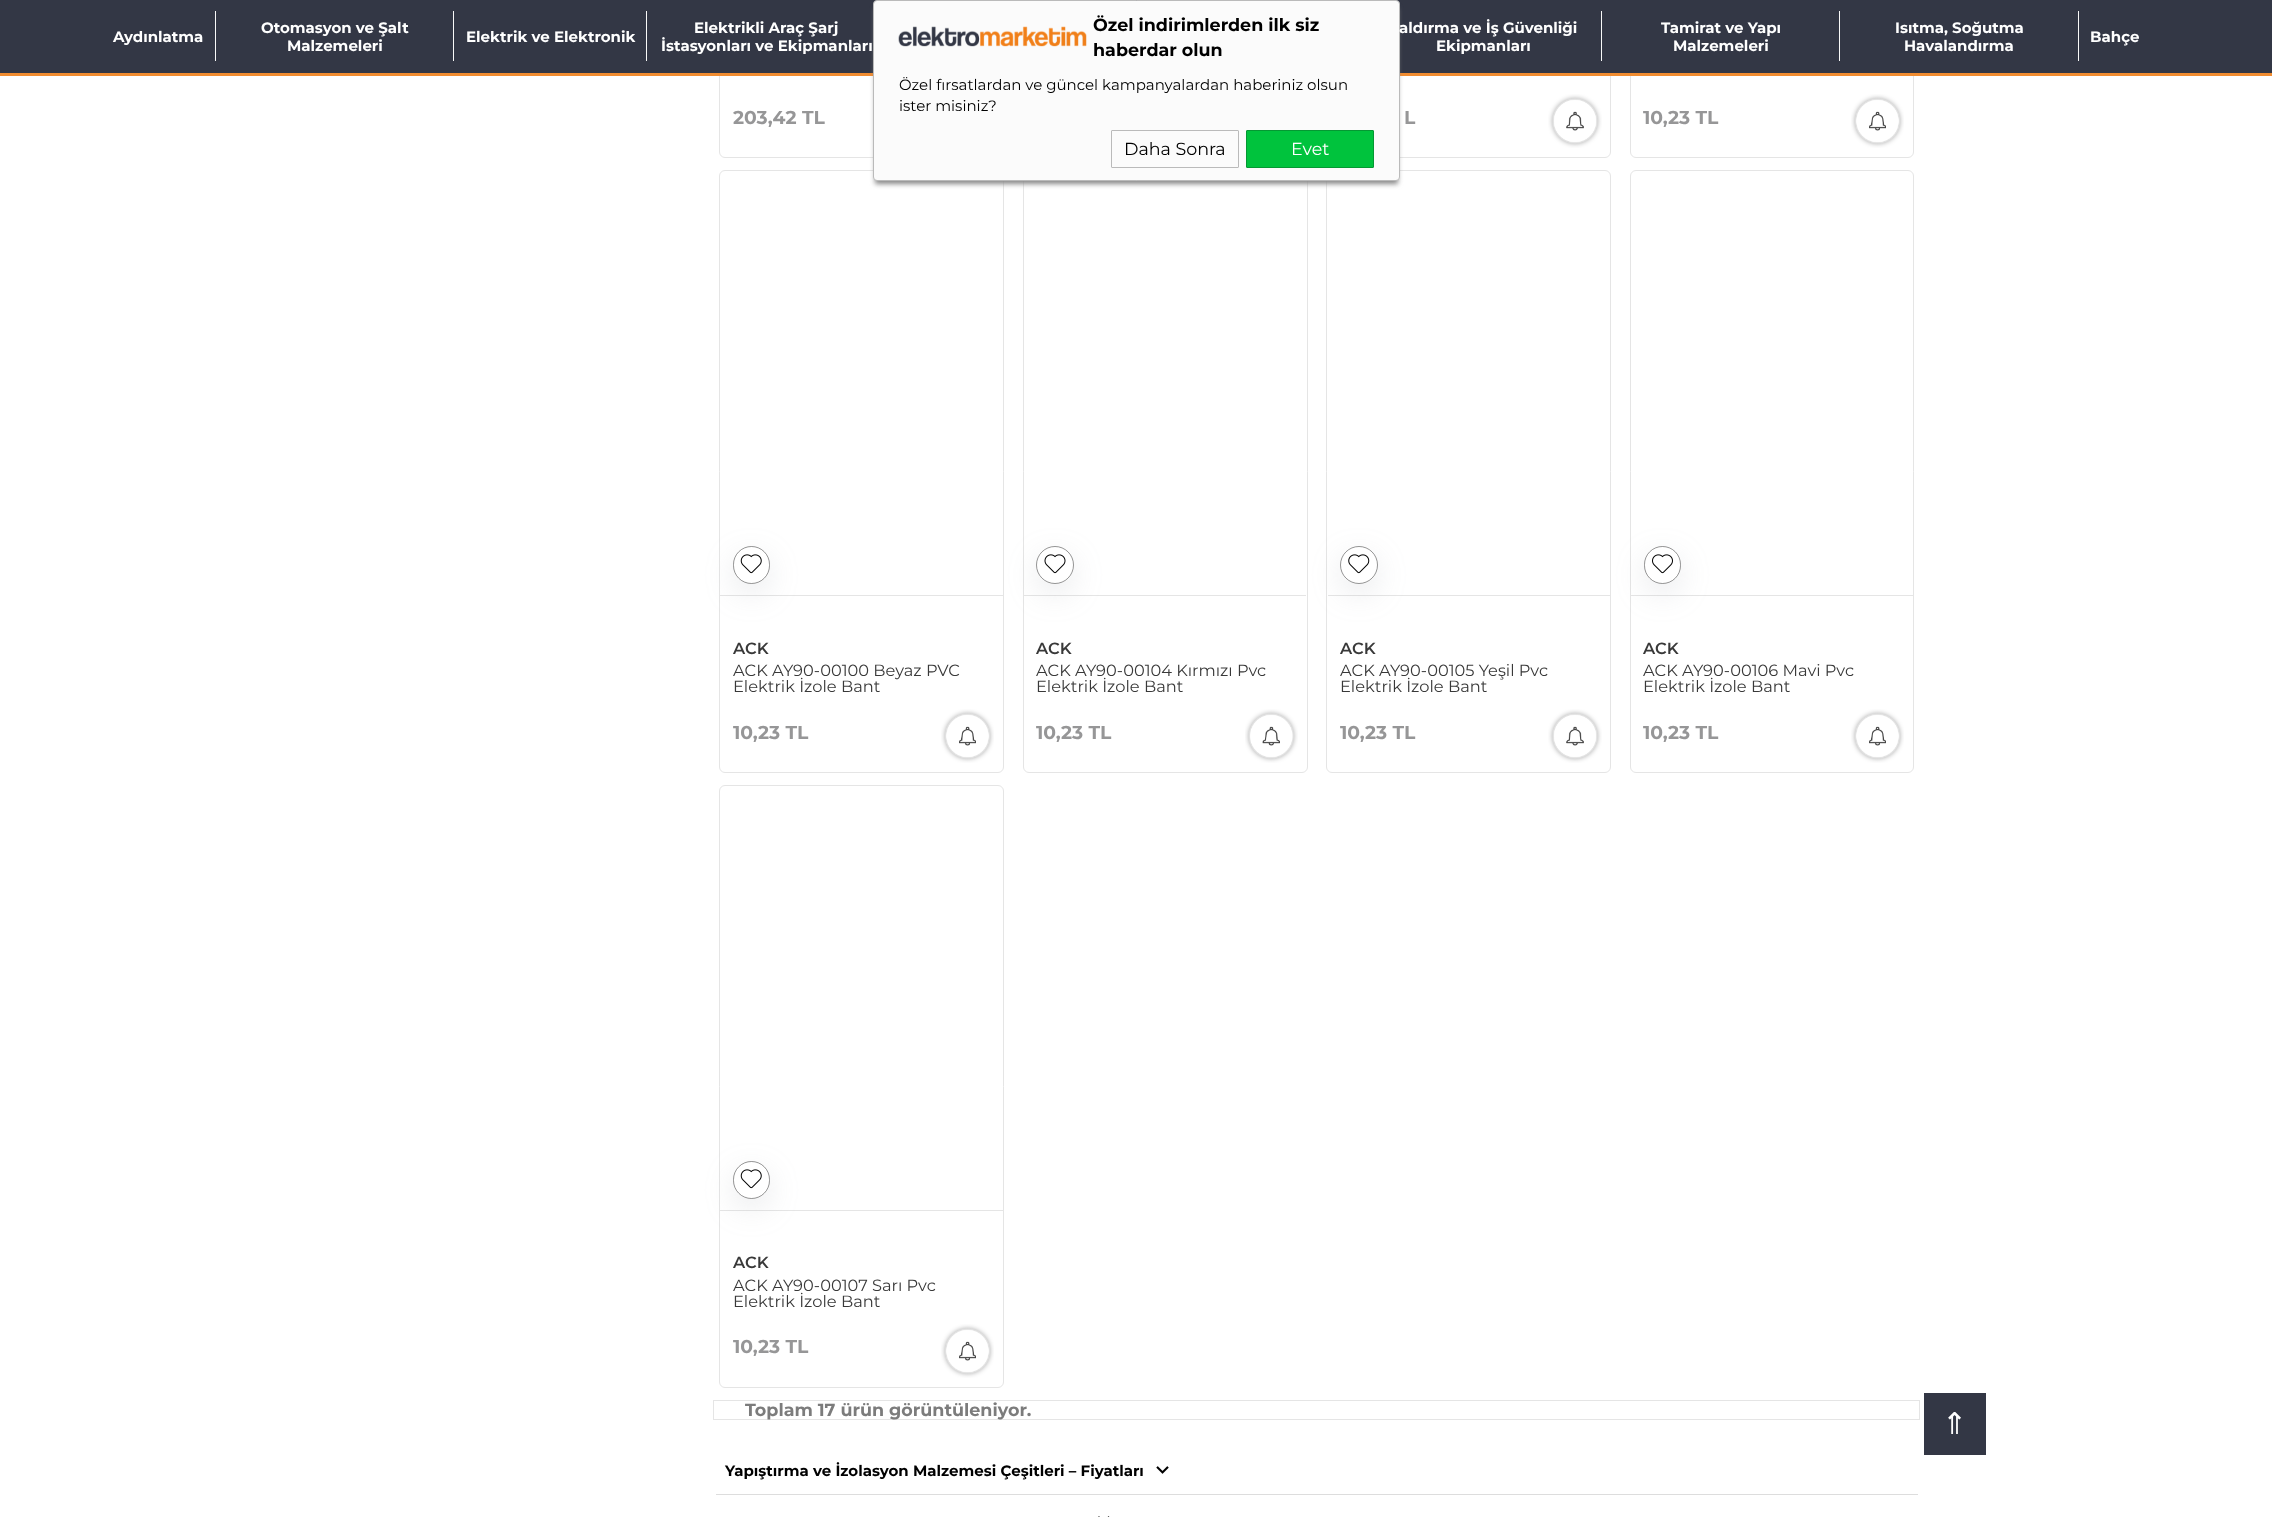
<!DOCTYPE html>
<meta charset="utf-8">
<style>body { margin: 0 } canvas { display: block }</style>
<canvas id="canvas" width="2272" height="1517"></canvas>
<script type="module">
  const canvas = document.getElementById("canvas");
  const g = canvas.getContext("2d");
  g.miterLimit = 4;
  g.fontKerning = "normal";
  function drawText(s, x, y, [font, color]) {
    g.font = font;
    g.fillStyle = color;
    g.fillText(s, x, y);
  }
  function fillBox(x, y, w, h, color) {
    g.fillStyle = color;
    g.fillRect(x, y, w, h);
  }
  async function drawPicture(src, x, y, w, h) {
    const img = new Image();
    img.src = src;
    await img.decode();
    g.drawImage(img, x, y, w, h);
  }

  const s1 = ["bold 17.5px Montserrat", "#000000"];
  const s2 = ["15px Montserrat", "#000000"];
  const s3 = ["17.5px Montserrat", "#000000"];
  const s4 = ["17.5px Montserrat", "#FFFFFF"];
  const s5 = ["bold 15px Montserrat", "#FFFFFF"];
  const s6 = ["30px DejaVu Sans", "#FFFFFF"];
  const s7 = ["bold 18.75px Montserrat", "#969697"];
  const s8 = ["600 16.25px Montserrat", "#393939"];
  const s9 = ["16.25px Montserrat", "#393939"];
  const s10 = ["bold 17.5px Montserrat", "#7C7C7C"];
  const s11 = ["bold 15px Montserrat", "#000000"];

  fillBox(0, 0, 2272, 1517, "#FFFFFF");
  g.beginPath();
  g.roundRect(719.5, -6.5, 284, 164, 5.5);
  g.strokeStyle = "#E5E5E5";
  g.stroke();
  g.beginPath();
  g.roundRect(1326.5, -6.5, 284, 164, 5.5);
  g.stroke();
  g.beginPath();
  g.roundRect(1630.5, -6.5, 283, 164, 5.5);
  g.stroke();
  fillBox(0, 0, 2272, 73, "#333745");
  fillBox(0, 73, 2272, 3, "#F18C30");
  g.beginPath();
  g.roundRect(719.5, 170.5, 284, 602, 5.5);
  g.stroke();
  g.beginPath();
  g.roundRect(1023.5, 170.5, 284, 602, 5.5);
  g.stroke();
  g.beginPath();
  g.roundRect(1326.5, 170.5, 284, 602, 5.5);
  g.stroke();
  g.fillStyle = "#888888";
  g.filter = "blur(2.5px)";
  g.beginPath();
  g.roundRect(875, 8, 523, 176, 1);
  g.fill();
  g.filter = "none";
  g.fillStyle = "#FBFBFB";
  g.beginPath();
  g.roundRect(873.5, 0.5, 526, 180, 3.5);
  g.fill();
  g.strokeStyle = "#BABABA";
  g.stroke();
  drawText("Özel indirimlerden ilk siz", 1093, 31, s1);
  drawText("haberdar olun", 1093, 56, s1);
  drawText("Özel fırsatlardan ve güncel kampanyalardan haberiniz olsun", 899, 90, s2);
  drawText("ister misiniz?", 899, 111, s2);
  await drawPicture("pic1.png", 898, 26, 189, 21);
  g.beginPath();
  g.roundRect(1111.5, 130.5, 127, 37, 0.5);
  g.stroke();
  drawText("Daha Sonra", 1124, 155, s3);
  g.fillStyle = "#00C33D";
  g.beginPath();
  g.roundRect(1246.5, 130.5, 127, 37, 0.5);
  g.fill();
  g.strokeStyle = "#059833";
  g.stroke();
  drawText("Evet", 1291, 155, s4);
  fillBox(215, 11, 1, 50, "#F8F8F8");
  drawText("Aydınlatma", 113, 42, s5);
  fillBox(453, 11, 1, 50, "#F8F8F8");
  drawText("Otomasyon ve Şalt", 261, 33, s5);
  drawText("Malzemeleri", 287, 51, s5);
  fillBox(646, 11, 1, 50, "#F8F8F8");
  drawText("Elektrik ve Elektronik", 466, 42, s5);
  drawText("Elektrikli Araç Şarj", 694, 33, s5);
  drawText("İstasyonları ve Ekipmanları", 661, 51, s5);
  fillBox(1601, 11, 1, 50, "#F8F8F8");
  drawText("aldırma ve İş Güvenliği", 1399, 33, s5);
  drawText("Ekipmanları", 1436, 51, s5);
  fillBox(1839, 11, 1, 50, "#F8F8F8");
  drawText("Tamirat ve Yapı", 1661, 33, s5);
  drawText("Malzemeleri", 1673, 51, s5);
  fillBox(2078, 11, 1, 50, "#F8F8F8");
  drawText("Isıtma, Soğutma", 1895, 33, s5);
  drawText("Havalandırma", 1904, 51, s5);
  drawText("Bahçe", 2090, 42, s5);
  fillBox(1924, 1393, 62, 62, "#333745");
  drawText("⇑", 1942, 1434, s6);
  drawText("203,42 TL", 733, 124, s7);
  drawText("L", 1404, 124, s7);
  await drawPicture("pic2.png", 1548, 94, 54, 54);
  drawText("10,23 TL", 1643, 124, s7);
  await drawPicture("pic3.png", 1851, 94, 53, 54);
  fillBox(720, 595, 283, 1, "#E5E5E5");
  g.save();
  g.beginPath();
  g.moveTo(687, 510);
  g.lineTo(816, 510);
  g.lineTo(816, 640);
  g.lineTo(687, 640);
  g.closePath();
  g.moveTo(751.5, 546);
  g.bezierCurveTo(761.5, 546, 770, 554.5, 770, 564.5);
  g.lineTo(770, 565.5);
  g.bezierCurveTo(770, 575.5, 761.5, 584, 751.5, 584);
  g.bezierCurveTo(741.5, 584, 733, 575.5, 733, 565.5);
  g.lineTo(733, 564.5);
  g.bezierCurveTo(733, 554.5, 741.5, 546, 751.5, 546);
  g.closePath();
  g.clip("evenodd");
  g.fillStyle = "rgba(149, 157, 165, 0.2)";
  g.filter = "blur(15px)";
  g.beginPath();
  g.roundRect(733, 556, 37, 38, 18.5);
  g.fill();
  g.filter = "none";
  g.restore();
  g.beginPath();
  g.roundRect(733.5, 546.5, 36, 37, 18);
  g.strokeStyle = "rgba(0, 0, 0, 0.42)";
  g.stroke();
  await drawPicture("pic4.png", 740, 554, 22, 20);
  drawText("ACK", 733, 654, s8);
  drawText("ACK AY90-00100 Beyaz PVC", 733, 676, s9);
  drawText("Elektrik İzole Bant", 733, 692, s9);
  drawText("10,23 TL", 733, 739, s7);
  await drawPicture("pic3.png", 941, 709, 53, 54);
  fillBox(1024, 595, 282, 1, "#E5E5E5");
  g.save();
  g.beginPath();
  g.moveTo(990, 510);
  g.lineTo(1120, 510);
  g.lineTo(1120, 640);
  g.lineTo(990, 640);
  g.closePath();
  g.moveTo(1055, 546);
  g.bezierCurveTo(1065.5, 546, 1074, 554.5, 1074, 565);
  g.bezierCurveTo(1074, 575.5, 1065.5, 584, 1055, 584);
  g.bezierCurveTo(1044.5, 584, 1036, 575.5, 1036, 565);
  g.bezierCurveTo(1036, 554.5, 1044.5, 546, 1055, 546);
  g.closePath();
  g.clip("evenodd");
  g.fillStyle = "rgba(149, 157, 165, 0.2)";
  g.filter = "blur(15px)";
  g.beginPath();
  g.roundRect(1036, 556, 38, 38, 19);
  g.fill();
  g.filter = "none";
  g.restore();
  g.beginPath();
  g.arc(1055, 565, 18.5, 0, Math.PI * 2);
  g.stroke();
  await drawPicture("pic5.png", 1044, 554, 22, 20);
  drawText("ACK", 1036, 654, s8);
  drawText("ACK AY90-00104 Kırmızı Pvc", 1036, 676, s9);
  drawText("Elektrik İzole Bant", 1036, 692, s9);
  drawText("10,23 TL", 1036, 739, s7);
  await drawPicture("pic6.png", 1245, 709, 53, 54);
  fillBox(1328, 595, 282, 1, "#E5E5E5");
  g.save();
  g.beginPath();
  g.moveTo(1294, 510);
  g.lineTo(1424, 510);
  g.lineTo(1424, 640);
  g.lineTo(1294, 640);
  g.closePath();
  g.moveTo(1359, 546);
  g.bezierCurveTo(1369.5, 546, 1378, 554.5, 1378, 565);
  g.bezierCurveTo(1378, 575.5, 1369.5, 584, 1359, 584);
  g.bezierCurveTo(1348.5, 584, 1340, 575.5, 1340, 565);
  g.bezierCurveTo(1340, 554.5, 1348.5, 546, 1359, 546);
  g.closePath();
  g.clip("evenodd");
  g.fillStyle = "rgba(149, 157, 165, 0.2)";
  g.filter = "blur(15px)";
  g.beginPath();
  g.roundRect(1340, 556, 38, 38, 19);
  g.fill();
  g.filter = "none";
  g.restore();
  g.beginPath();
  g.arc(1359, 565, 18.5, 0, Math.PI * 2);
  g.stroke();
  await drawPicture("pic7.png", 1348, 554, 22, 20);
  drawText("ACK", 1340, 654, s8);
  drawText("ACK AY90-00105 Yeşil Pvc", 1340, 676, s9);
  drawText("Elektrik İzole Bant", 1340, 692, s9);
  drawText("10,23 TL", 1340, 739, s7);
  await drawPicture("pic2.png", 1548, 709, 54, 54);
  g.beginPath();
  g.roundRect(1630.5, 170.5, 283, 602, 5.5);
  g.strokeStyle = "#E5E5E5";
  g.stroke();
  fillBox(1631, 595, 282, 1, "#E5E5E5");
  g.save();
  g.beginPath();
  g.moveTo(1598, 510);
  g.lineTo(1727, 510);
  g.lineTo(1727, 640);
  g.lineTo(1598, 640);
  g.closePath();
  g.moveTo(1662.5, 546);
  g.bezierCurveTo(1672.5, 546, 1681, 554.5, 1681, 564.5);
  g.lineTo(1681, 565.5);
  g.bezierCurveTo(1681, 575.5, 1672.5, 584, 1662.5, 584);
  g.bezierCurveTo(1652.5, 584, 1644, 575.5, 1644, 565.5);
  g.lineTo(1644, 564.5);
  g.bezierCurveTo(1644, 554.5, 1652.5, 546, 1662.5, 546);
  g.closePath();
  g.clip("evenodd");
  g.fillStyle = "rgba(149, 157, 165, 0.2)";
  g.filter = "blur(15px)";
  g.beginPath();
  g.roundRect(1644, 556, 37, 38, 18.5);
  g.fill();
  g.filter = "none";
  g.restore();
  g.beginPath();
  g.roundRect(1644.5, 546.5, 36, 37, 18);
  g.strokeStyle = "rgba(0, 0, 0, 0.42)";
  g.stroke();
  await drawPicture("pic8.png", 1652, 554, 21, 20);
  drawText("ACK", 1643, 654, s8);
  drawText("ACK AY90-00106 Mavi Pvc", 1643, 676, s9);
  drawText("Elektrik İzole Bant", 1643, 692, s9);
  drawText("10,23 TL", 1643, 739, s7);
  await drawPicture("pic3.png", 1851, 709, 53, 54);
  g.beginPath();
  g.roundRect(719.5, 785.5, 284, 602, 5.5);
  g.strokeStyle = "#E5E5E5";
  g.stroke();
  fillBox(720, 1210, 283, 1, "#E5E5E5");
  g.save();
  g.beginPath();
  g.moveTo(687, 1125);
  g.lineTo(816, 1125);
  g.lineTo(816, 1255);
  g.lineTo(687, 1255);
  g.closePath();
  g.moveTo(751.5, 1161);
  g.bezierCurveTo(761.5, 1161, 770, 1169.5, 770, 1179.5);
  g.lineTo(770, 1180.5);
  g.bezierCurveTo(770, 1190.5, 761.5, 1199, 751.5, 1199);
  g.bezierCurveTo(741.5, 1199, 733, 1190.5, 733, 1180.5);
  g.lineTo(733, 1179.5);
  g.bezierCurveTo(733, 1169.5, 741.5, 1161, 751.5, 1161);
  g.closePath();
  g.clip("evenodd");
  g.fillStyle = "rgba(149, 157, 165, 0.2)";
  g.filter = "blur(15px)";
  g.beginPath();
  g.roundRect(733, 1171, 37, 38, 18.5);
  g.fill();
  g.filter = "none";
  g.restore();
  g.beginPath();
  g.roundRect(733.5, 1161.5, 36, 37, 18);
  g.strokeStyle = "rgba(0, 0, 0, 0.42)";
  g.stroke();
  await drawPicture("pic4.png", 740, 1169, 22, 20);
  drawText("ACK", 733, 1268, s8);
  drawText("ACK AY90-00107 Sarı Pvc", 733, 1291, s9);
  drawText("Elektrik İzole Bant", 733, 1307, s9);
  drawText("10,23 TL", 733, 1353, s7);
  await drawPicture("pic3.png", 941, 1324, 53, 54);
  g.strokeStyle = "#E5E5E5";
  g.strokeRect(713.5, 1400.5, 1206, 19);
  drawText("Toplam 17 ürün görüntüleniyor.", 745, 1416, s10);
  fillBox(716, 1494, 1202, 1, "#DDDDDD");
  drawText("Yapıştırma ve İzolasyon Malzemesi Çeşitleri – Fiyatları", 725, 1476, s11);
  await drawPicture("pic9.png", 1156, 1466, 13, 8);
  await drawPicture("pic10.png", 1098, 1516, 12, 1);
</script>
